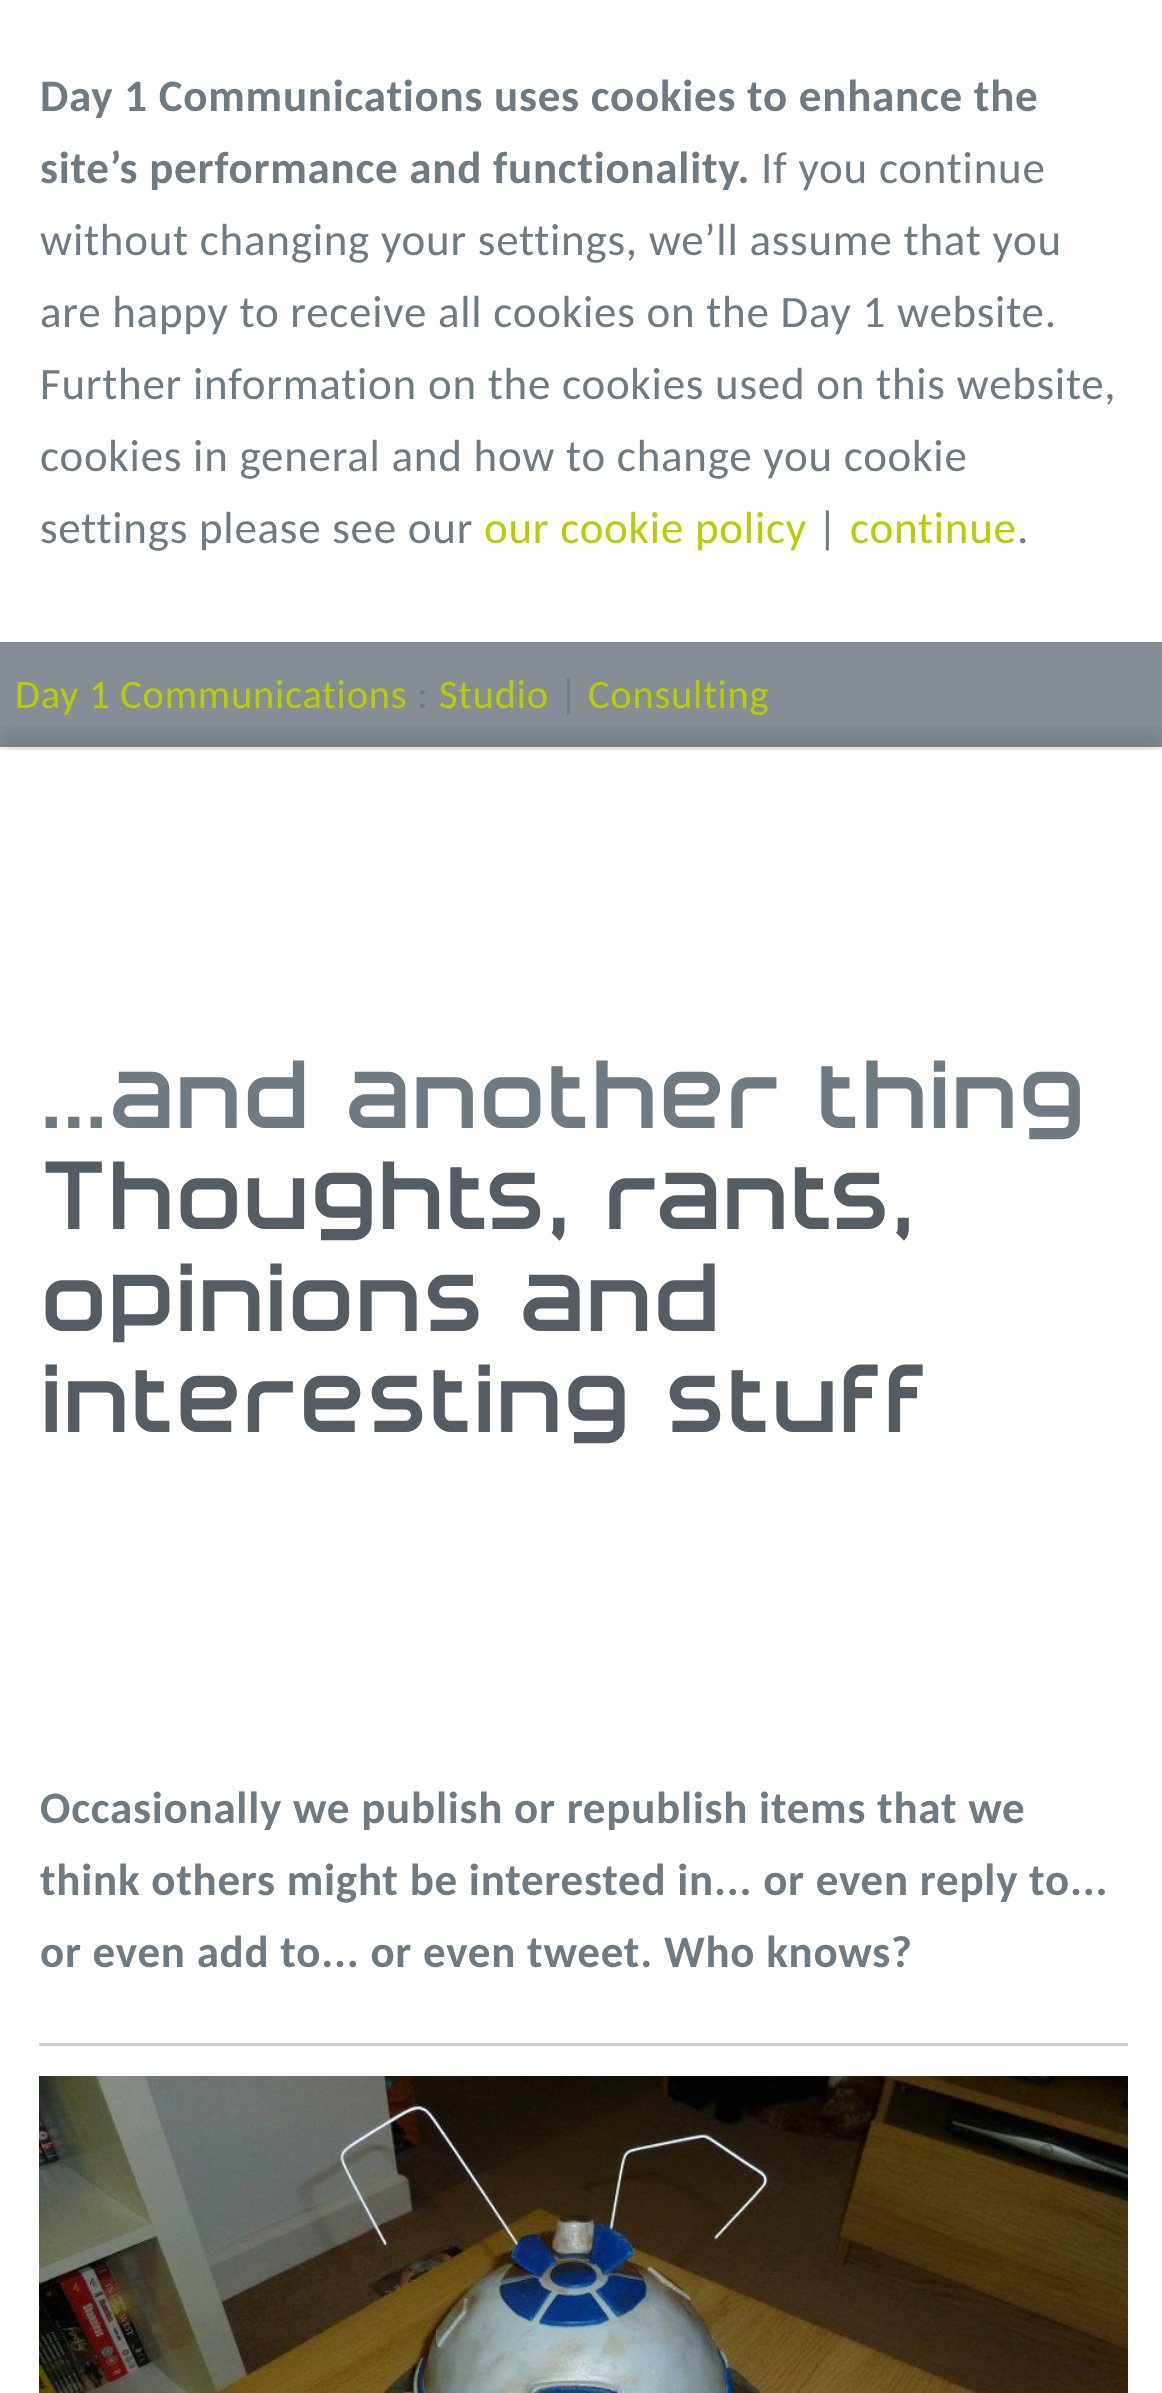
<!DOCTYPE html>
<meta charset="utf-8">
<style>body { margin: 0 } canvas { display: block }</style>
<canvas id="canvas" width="1162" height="2393"></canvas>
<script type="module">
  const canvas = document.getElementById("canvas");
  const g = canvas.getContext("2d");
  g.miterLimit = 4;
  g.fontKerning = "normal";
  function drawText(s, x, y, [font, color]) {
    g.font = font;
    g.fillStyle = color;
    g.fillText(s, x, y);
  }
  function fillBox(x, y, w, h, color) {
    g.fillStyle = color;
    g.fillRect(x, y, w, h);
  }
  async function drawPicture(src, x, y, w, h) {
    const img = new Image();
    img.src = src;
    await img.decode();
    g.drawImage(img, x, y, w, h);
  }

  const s1 = ["bold 45px Carlito", "#6F7B83"];
  const s2 = ["45px Carlito", "#6F7B83"];
  const s3 = ["45px Carlito", "#B9CD00"];
  const s4 = ["40.5px Carlito", "#B9CD00"];
  const s5 = ["40.5px Carlito", "#6F7B83"];
  const s6 = ["112.5px 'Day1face'", "#6F7B83"];
  const s7 = ["112.5px 'Day1face'", "#545D63"];

  fillBox(0, 0, 1162, 2393, "#FFFFFF");
  g.letterSpacing = "0.75px";
  drawText("Day 1 Communications uses cookies to enhance the", 40, 111, s1);
  drawText("site’s performance and functionality.", 40, 183, s1);
  drawText("If you continue", 761, 183, s2);
  drawText("without changing your settings, we’ll assume that you", 40, 255, s2);
  drawText("are happy to receive all cookies on the Day 1 website.", 40, 327, s2);
  drawText("Further information on the cookies used on this website,", 40, 399, s2);
  drawText("cookies in general and how to change you cookie", 40, 471, s2);
  drawText("settings please see our", 40, 543, s2);
  drawText("our cookie policy", 484, 543, s3);
  drawText("|", 817, 543, s2);
  drawText("continue", 850, 543, s3);
  drawText(".", 1017, 543, s2);
  fillBox(0, 642, 1162, 105, "#868E95");
  drawText("Day 1 Communications", 15, 708, s4);
  drawText(":", 417, 708, s5);
  drawText("Studio", 439, 708, s4);
  drawText("|", 559, 708, s5);
  drawText("Consulting", 588, 708, s4);
  g.save();
  g.beginPath();
  g.rect(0, 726, 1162, 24);
  g.clip();
  g.fillStyle = "rgba(0, 0, 0, 0.1)";
  g.filter = "blur(7.5px)";
  g.beginPath();
  g.rect(0, 732, 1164, 216);
  g.fill();
  g.filter = "none";
  g.restore();
  g.letterSpacing = "0px";
  drawText("...and another thing", 40, 1128, s6);
  drawText("Thoughts, rants,", 40, 1229, s7);
  drawText("opinions and", 40, 1331, s7);
  drawText("interesting stuff", 40, 1432, s7);
  g.letterSpacing = "0.75px";
  drawText("Occasionally we publish or republish items that we", 40, 1823, s1);
  drawText("think others might be interested in... or even reply to...", 40, 1895, s1);
  drawText("or even add to... or even tweet. Who knows?", 40, 1967, s1);
  fillBox(39, 2043, 1089, 3, "#CCCCCC");
  await drawPicture("pic1.png", 39, 2076, 1089, 317);
</script>
